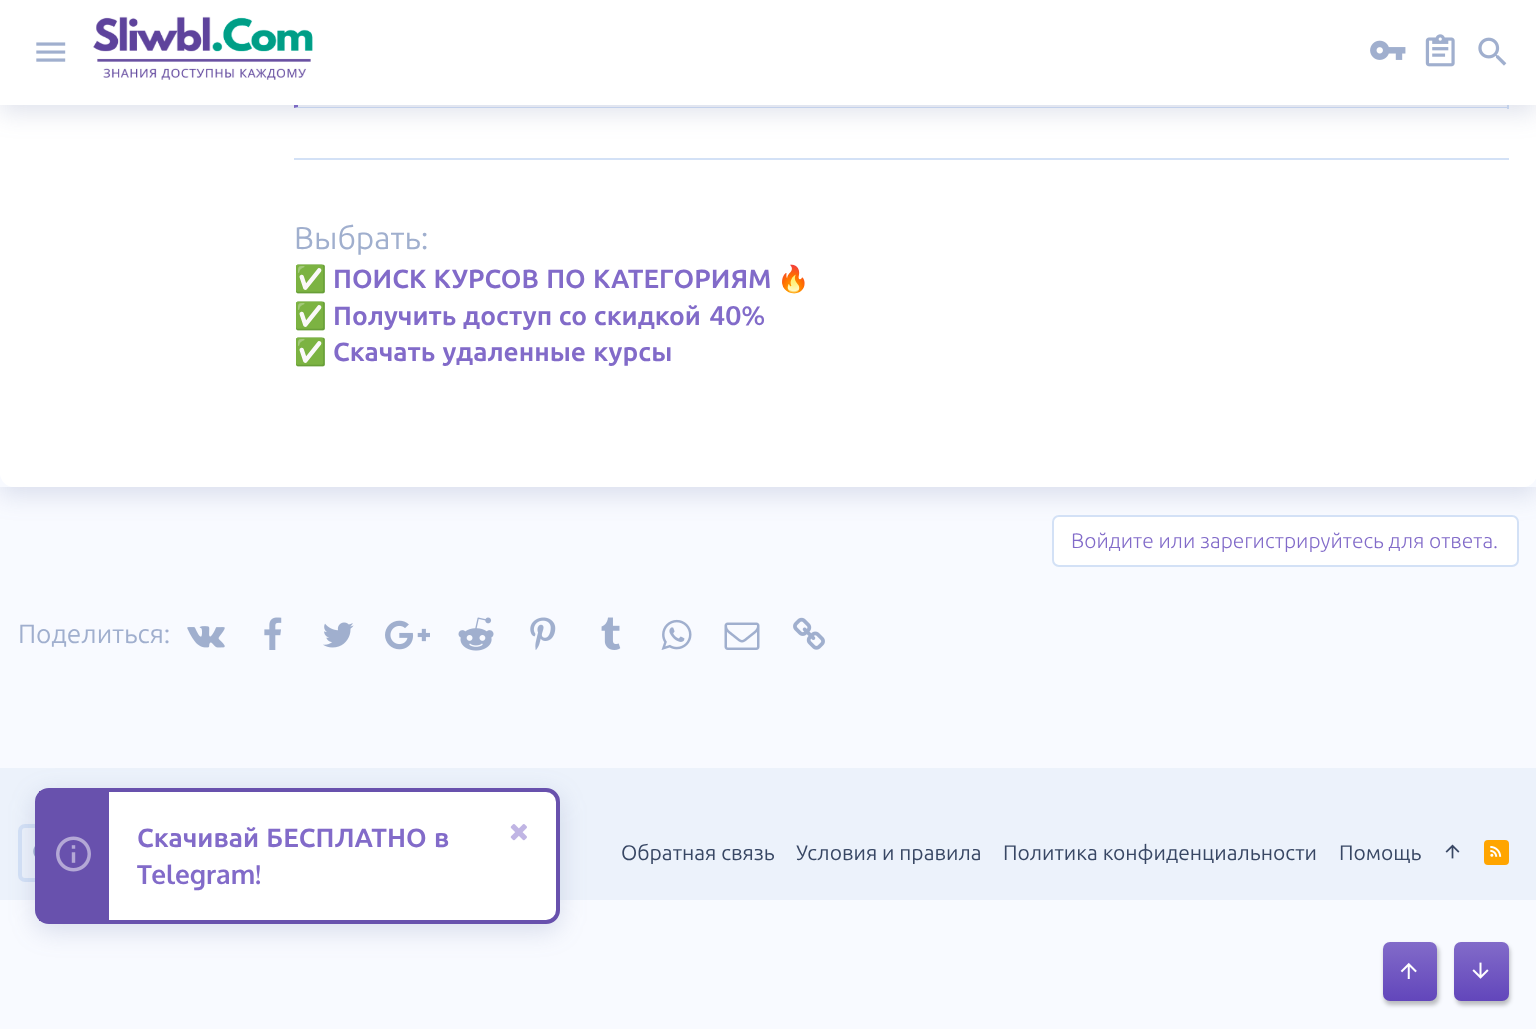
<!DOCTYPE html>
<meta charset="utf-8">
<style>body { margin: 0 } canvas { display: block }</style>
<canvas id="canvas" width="1536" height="1029"></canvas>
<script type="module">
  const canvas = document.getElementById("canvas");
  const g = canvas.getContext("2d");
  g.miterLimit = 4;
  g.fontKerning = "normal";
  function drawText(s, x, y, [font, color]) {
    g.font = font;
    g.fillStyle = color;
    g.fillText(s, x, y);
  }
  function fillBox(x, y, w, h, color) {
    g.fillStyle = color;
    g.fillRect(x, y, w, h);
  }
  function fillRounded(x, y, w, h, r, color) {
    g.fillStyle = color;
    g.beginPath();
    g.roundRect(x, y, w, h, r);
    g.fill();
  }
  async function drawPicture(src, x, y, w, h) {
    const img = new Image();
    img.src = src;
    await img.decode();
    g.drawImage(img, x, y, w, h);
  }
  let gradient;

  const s1 = ["31.5px Ubuntu", "#A0AFCE"];
  const s2 = ["26.25px Noto Color Emoji", "#A0AFCE"];
  const s3 = ["bold 26.25px Ubuntu", "#826BC9"];
  const s4 = ["bold 26.25px Oxygen", "#826BC9"];
  const s5 = ["300 21px Ubuntu", "#826BC9"];
  const s6 = ["26.25px Ubuntu", "#A0AFCE"];
  const s7 = ["21px Ubuntu", "#384764"];

  fillBox(0, 0, 1536, 1029, "#F8FAFF");
  g.save();
  g.beginPath();
  g.moveTo(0, 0);
  g.lineTo(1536, 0);
  g.lineTo(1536, 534);
  g.lineTo(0, 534);
  g.closePath();
  g.moveTo(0, -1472);
  g.lineTo(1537, -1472);
  g.lineTo(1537, 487);
  g.lineTo(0, 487);
  g.closePath();
  g.clip("evenodd");
  g.fillStyle = "rgba(88, 106, 153, 0.2)";
  g.filter = "blur(13px)";
  g.beginPath();
  g.rect(0, -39, 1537, 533);
  g.fill();
  g.filter = "none";
  g.restore();
  fillRounded(0, -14, 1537, 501, 14, "#FFFFFF");
  fillBox(1507, 105, 2, 4, "#D3E1F6");
  g.beginPath();
  g.moveTo(1508, 108);
  g.lineTo(294, 108);
  g.lineTo(298, 107);
  g.lineTo(1507, 107);
  g.closePath();
  g.fill();
  g.fillStyle = "#826BC9";
  g.beginPath();
  g.moveTo(294, 108);
  g.lineTo(294, 33);
  g.lineTo(298, 35);
  g.lineTo(298, 107);
  g.closePath();
  g.fill();
  fillBox(298, 105, 1209, 2, "#F9FAFD");
  g.fillStyle = "rgba(88, 106, 153, 0.2)";
  g.filter = "blur(13px)";
  g.beginPath();
  g.rect(0, 7, 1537, 105);
  g.fill();
  g.filter = "none";
  fillBox(0, 0, 1536, 105, "#FFFFFF");
  await drawPicture("pic1.png", 36, 42, 30, 20);
  await drawPicture("pic2.png", 93, 16, 220, 64);
  await drawPicture("pic3.png", 1370, 40, 36, 20);
  await drawPicture("pic4.png", 1425, 34, 30, 33);
  await drawPicture("pic5.png", 1478, 37, 29, 29);
  fillBox(294, 158, 1215, 2, "#D3E1F6");
  drawText("Выбрать:", 294, 249, s1);
  drawText("✅", 294, 288, s2);
  g.wordSpacing = "1px";
  drawText("ПОИСК КУРСОВ ПО КАТЕГОРИЯМ", 333, 288, s3);
  g.wordSpacing = "0px";
  drawText("🔥", 777, 288, s2);
  drawText("✅", 294, 325, s2);
  g.wordSpacing = "0.5px";
  drawText("Получить доступ со скидкой", 333, 325, s3);
  g.wordSpacing = "0px";
  drawText("40%", 709, 325, s4);
  drawText("✅", 294, 361, s2);
  g.wordSpacing = "1px";
  drawText("Скачать удаленные курсы", 333, 361, s3);
  g.fillStyle = "#FFFFFF";
  g.beginPath();
  g.roundRect(1053, 516, 465, 50, 6);
  g.fill();
  g.strokeStyle = "#D3E1F6";
  g.lineWidth = 2;
  g.stroke();
  g.wordSpacing = "0px";
  drawText("Войдите или зарегистрируйтесь для ответа.", 1071, 548, s5);
  drawText("Поделиться:", 18, 643, s6);
  await drawPicture("pic6.png", 187, 626, 38, 22);
  await drawPicture("pic7.png", 264, 617, 18, 33);
  await drawPicture("pic8.png", 323, 622, 31, 26);
  await drawPicture("pic9.png", 385, 620, 45, 30);
  await drawPicture("pic10.png", 458, 617, 36, 34);
  await drawPicture("pic11.png", 530, 617, 26, 33);
  await drawPicture("pic12.png", 601, 617, 20, 33);
  await drawPicture("pic13.png", 661, 619, 31, 31);
  await drawPicture("pic14.png", 724, 622, 36, 28);
  await drawPicture("pic15.png", 793, 617, 32, 33);
  fillBox(0, 768, 1536, 132, "#ECF2FB");
  g.beginPath();
  g.roundRect(20, 826, 169, 54, 5);
  g.lineWidth = 4;
  g.stroke();
  await drawPicture("pic16.png", 33, 846, 2, 11);
  drawText("Обратная связь", 621, 860, s7);
  drawText("Условия и правила", 796, 860, s7);
  drawText("Политика конфиденциальности", 1003, 860, s7);
  drawText("Помощь", 1339, 860, s7);
  await drawPicture("pic17.png", 1445, 844, 15, 15);
  fillRounded(1484, 840, 25, 25, 4, "#FFA500");
  await drawPicture("pic18.png", 1490, 845, 12, 12);
  g.fillStyle = "rgba(0, 0, 0, 0.25)";
  g.filter = "blur(2px)";
  g.beginPath();
  g.roundRect(1384, 945, 55, 60, 7);
  g.fill();
  g.filter = "none";
  gradient = g.createLinearGradient(1410, 942, 1410, 1001);
  gradient.addColorStop(0, "#826BC9");
  gradient.addColorStop(1, "#6246BB");
  g.fillStyle = gradient;
  g.beginPath();
  g.roundRect(1383, 942, 54, 59, 7);
  g.fill();
  await drawPicture("pic19.png", 1400, 962, 17, 17);
  g.fillStyle = "rgba(0, 0, 0, 0.25)";
  g.filter = "blur(2px)";
  g.beginPath();
  g.roundRect(1456, 945, 54, 60, 7);
  g.fill();
  g.filter = "none";
  gradient = g.createLinearGradient(1481, 942, 1481, 1001);
  gradient.addColorStop(0, "#826BC9");
  gradient.addColorStop(1, "#6246BB");
  g.fillStyle = gradient;
  g.beginPath();
  g.roundRect(1454, 942, 55, 59, 7);
  g.fill();
  await drawPicture("pic20.png", 1472, 962, 17, 17);
  g.fillStyle = "rgba(88, 106, 153, 0.2)";
  g.filter = "blur(13px)";
  g.beginPath();
  g.roundRect(35, 795, 525, 136, 14);
  g.fill();
  g.filter = "none";
  g.fillStyle = "#FFFFFF";
  g.beginPath();
  g.roundRect(37, 790, 521, 132, 12);
  g.fill();
  g.strokeStyle = "#6851AD";
  g.stroke();
  fillBox(39, 791, 70, 130, "#6851AD");
  await drawPicture("pic21.png", 56, 836, 35, 36);
  g.wordSpacing = "1px";
  drawText("Скачивай БЕСПЛАТНО в", 137, 847, s3);
  await drawPicture("pic22.png", 510, 824, 17, 17);
  g.wordSpacing = "0px";
  drawText("Telegram!", 137, 884, s4);
</script>
